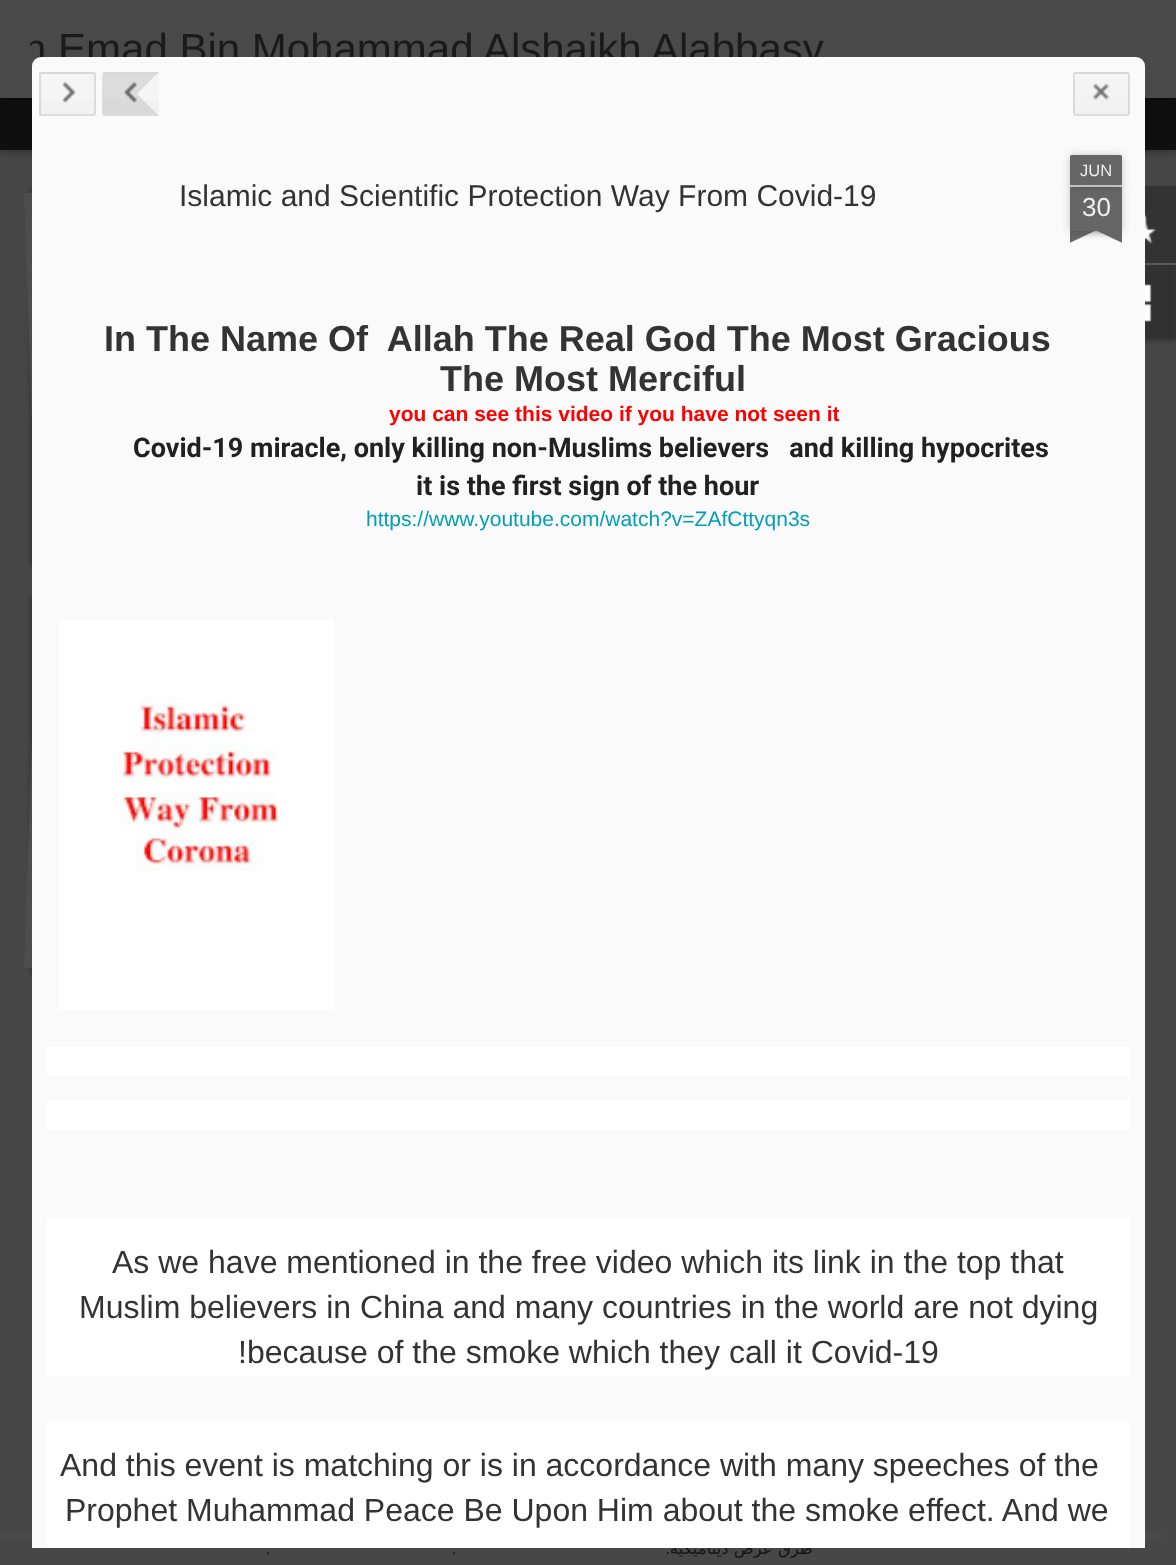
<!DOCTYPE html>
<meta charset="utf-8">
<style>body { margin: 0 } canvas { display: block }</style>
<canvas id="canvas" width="1176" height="1565"></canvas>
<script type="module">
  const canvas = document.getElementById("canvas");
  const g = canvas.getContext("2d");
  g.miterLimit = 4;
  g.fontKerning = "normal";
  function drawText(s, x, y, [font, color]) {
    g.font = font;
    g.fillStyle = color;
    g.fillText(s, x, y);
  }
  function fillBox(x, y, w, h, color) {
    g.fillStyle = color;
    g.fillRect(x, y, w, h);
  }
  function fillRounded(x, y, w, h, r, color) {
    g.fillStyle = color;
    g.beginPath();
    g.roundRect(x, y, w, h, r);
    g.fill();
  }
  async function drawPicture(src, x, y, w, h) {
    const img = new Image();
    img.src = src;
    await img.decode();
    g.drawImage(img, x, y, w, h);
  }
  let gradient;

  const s1 = ["42px Liberation Sans", "#1A1A1A"];
  const s2 = ["16.5px DejaVu Sans", "#141414"];
  const s3 = ["30px Liberation Sans", "#333333"];
  const s4 = ["16.5px Liberation Sans", "#EEEEEE"];
  const s5 = ["26px Liberation Sans", "#EEEEEE"];
  const s6 = ["bold 36px Liberation Sans", "#333333"];
  const s7 = ["bold 21px Liberation Sans", "#FF0000"];
  const s8 = ["bold 27px Roboto", "#212121"];
  const s9 = ["21px Liberation Sans", "#009EB8"];
  const s10 = ["32px Liberation Sans", "#333333"];
  const s11 = ["16.5px Liberation Sans", "#141414"];

  fillBox(0, 0, 1176, 1565, "#474747");
  g.fillStyle = "rgba(0, 0, 0, 0.5)";
  g.filter = "blur(6px)";
  g.beginPath();
  g.rect(0, 98, 1176, 52);
  g.fill();
  g.filter = "none";
  fillBox(0, 98, 1176, 52, "#0F0F0F");
  g.fillStyle = "rgba(0, 0, 0, 0.3)";
  g.filter = "blur(4px)";
  g.beginPath();
  g.rect(0, 0, 1176, 98);
  g.fill();
  g.filter = "none";
  gradient = g.createLinearGradient(0, 0, 0, 98);
  gradient.addColorStop(0, "#4A4A4A");
  gradient.addColorStop(1, "#494949");
  g.fillStyle = gradient;
  g.fillRect(0, 0, 1176, 98);
  g.save();
  g.beginPath();
  g.rect(30, 0, 794, 98);
  g.clip();
  drawText("h Emad Bin Mohammad Alshaikh Alabbasy", 23, 63, s1);
  g.restore();
  g.fillStyle = "#333333";
  g.filter = "blur(2.5px)";
  g.beginPath();
  g.rect(30, 189, 333, 378);
  g.fill();
  g.filter = "none";
  g.fillStyle = "#4D4D4D";
  g.beginPath();
  g.moveTo(24, 193);
  g.lineTo(356, 182);
  g.lineTo(369, 560);
  g.lineTo(37, 571);
  g.closePath();
  g.fill();
  g.fillStyle = "#333333";
  g.filter = "blur(2.5px)";
  g.beginPath();
  g.rect(30, 597, 333, 378);
  g.fill();
  g.filter = "none";
  g.fillStyle = "#4D4D4D";
  g.beginPath();
  g.moveTo(37, 590);
  g.lineTo(369, 601);
  g.lineTo(356, 979);
  g.lineTo(24, 968);
  g.closePath();
  g.fill();
  g.fillStyle = "rgba(0, 0, 0, 0.3)";
  g.filter = "blur(2px)";
  g.beginPath();
  g.roundRect(1101, 188, 75, 153, 3);
  g.fill();
  g.filter = "none";
  gradient = g.createLinearGradient(569, 1532, 569, 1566);
  gradient.addColorStop(0, "#4A4A4A");
  gradient.addColorStop(1, "#484848");
  g.fillStyle = gradient;
  g.fillRect(0, 1532, 1164, 9);
  g.direction = "rtl";
  drawText("طرق عرض ديناميكية", 813, 1554, s2);
  g.fillStyle = "#FAFAFA";
  g.beginPath();
  g.roundRect(32, 57, 1113, 1491, [9, 9, 0, 0]);
  g.fill();
  g.fillStyle = "#F5F5F5";
  g.beginPath();
  g.roundRect(39, 72, 57, 44, [0, 3, 3, 0]);
  g.fill();
  g.save();
  g.beginPath();
  g.roundRect(39, 72, 57, 44, [0, 3, 3, 0]);
  g.clip();
  gradient = g.createLinearGradient(68, 33, 68, 74);
  gradient.addColorStop(0, "#F5F5F5");
  gradient.addColorStop(1, "#F1F1F1");
  g.fillStyle = gradient;
  g.fillRect(39, 72, 57, 2);
  g.restore();
  gradient = g.createLinearGradient(68, 74, 68, 114);
  gradient.addColorStop(0, "#F5F5F5");
  gradient.addColorStop(1, "#F1F1F1");
  g.fillStyle = gradient;
  g.fillRect(39, 99, 57, 15);
  g.beginPath();
  g.roundRect(40, 73, 55, 42, [0, 2, 2, 0]);
  g.strokeStyle = "rgba(0, 0, 0, 0.1)";
  g.lineWidth = 2;
  g.stroke();
  await drawPicture("pic1.png", 62, 81, 14, 22);
  g.fillStyle = "#F5F5F5";
  g.beginPath();
  g.roundRect(102, 72, 57, 44, [3, 0, 0, 3]);
  g.fill();
  g.save();
  g.beginPath();
  g.roundRect(102, 72, 57, 44, [3, 0, 0, 3]);
  g.clip();
  gradient = g.createLinearGradient(131, 33, 131, 74);
  gradient.addColorStop(0, "#F5F5F5");
  gradient.addColorStop(1, "#F1F1F1");
  g.fillStyle = gradient;
  g.fillRect(102, 72, 57, 2);
  g.restore();
  gradient = g.createLinearGradient(131, 74, 131, 114);
  gradient.addColorStop(0, "#F5F5F5");
  gradient.addColorStop(1, "#F1F1F1");
  g.fillStyle = gradient;
  g.fillRect(102, 99, 57, 15);
  g.fillStyle = "rgba(0, 0, 0, 0.1)";
  g.beginPath();
  g.moveTo(105, 72);
  g.lineTo(159, 72);
  g.lineTo(137, 94);
  g.lineTo(124, 94);
  g.lineTo(103, 73);
  g.closePath();
  g.moveTo(159, 116);
  g.lineTo(137, 94);
  g.lineTo(124, 94);
  g.lineTo(103, 115);
  g.lineTo(103, 116);
  g.closePath();
  g.fill();
  g.beginPath();
  g.moveTo(103, 115);
  g.lineTo(124, 94);
  g.lineTo(103, 73);
  g.bezierCurveTo(102, 74, 101, 112, 103, 115);
  g.closePath();
  g.fill();
  await drawPicture("pic2.png", 124, 81, 13, 22);
  fillRounded(1073, 72, 57, 44, 3, "#F5F5F5");
  g.save();
  g.beginPath();
  g.roundRect(1073, 72, 57, 44, 3);
  g.clip();
  gradient = g.createLinearGradient(1101, 33, 1101, 74);
  gradient.addColorStop(0, "#F5F5F5");
  gradient.addColorStop(1, "#F1F1F1");
  g.fillStyle = gradient;
  g.fillRect(1073, 72, 57, 2);
  gradient = g.createLinearGradient(1101, 74, 1101, 114);
  gradient.addColorStop(0, "#F5F5F5");
  gradient.addColorStop(1, "#F1F1F1");
  g.fillStyle = gradient;
  g.fillRect(1073, 74, 57, 40);
  g.restore();
  g.beginPath();
  g.roundRect(1074, 73, 55, 42, 2);
  g.stroke();
  await drawPicture("pic3.png", 1093, 83, 17, 17);
  g.direction = "ltr";
  drawText("Islamic and Scientific Protection Way From Covid-19", 179, 206, s3);
  g.fillStyle = "rgba(0, 0, 0, 0.2)";
  g.filter = "blur(4px)";
  g.beginPath();
  g.rect(1070, 186, 52, 45);
  g.fill();
  g.filter = "none";
  fillBox(1070, 186, 52, 45, "#666666");
  g.fillStyle = "rgba(0, 0, 0, 0.2)";
  g.filter = "blur(4px)";
  g.beginPath();
  g.roundRect(1070, 155, 52, 31, 1.5);
  g.fill();
  g.filter = "none";
  g.fillStyle = "#666666";
  g.beginPath();
  g.roundRect(1070, 155, 52, 31, [1.5, 1.5, 0, 0]);
  g.fill();
  fillBox(1070, 185, 52, 2, "rgba(255, 255, 255, 0.6)");
  drawText("JUN", 1080, 176, s4);
  drawText("30", 1082, 216, s5);
  g.save();
  g.beginPath();
  g.rect(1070, 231, 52, 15);
  g.clip();
  g.fillStyle = "rgba(0, 0, 0, 0.2)";
  g.filter = "blur(4px)";
  g.beginPath();
  g.rect(1056, 216, 75, 15);
  g.fill();
  g.filter = "none";
  g.restore();
  g.save();
  g.beginPath();
  g.rect(1070, 231, 52, 15);
  g.clip();
  g.fillStyle = "#666666";
  g.beginPath();
  g.moveTo(1056, 233);
  g.lineTo(1124, 201);
  g.lineTo(1131, 214);
  g.lineTo(1063, 246);
  g.closePath();
  g.fill();
  g.restore();
  fillBox(1145, 186, 31, 77, "#333333");
  await drawPicture("pic6.png", 1145, 214, 11, 30);
  g.save();
  g.beginPath();
  g.rect(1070, 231, 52, 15);
  g.clip();
  g.fillStyle = "rgba(0, 0, 0, 0.2)";
  g.filter = "blur(4px)";
  g.beginPath();
  g.rect(1061, 216, 75, 15);
  g.fill();
  g.filter = "none";
  g.restore();
  g.save();
  g.beginPath();
  g.rect(1070, 231, 52, 15);
  g.clip();
  g.fillStyle = "#666666";
  g.beginPath();
  g.moveTo(1067, 201);
  g.lineTo(1135, 233);
  g.lineTo(1129, 246);
  g.lineTo(1061, 214);
  g.closePath();
  g.fill();
  g.restore();
  drawText("In The Name Of  Allah The Real God The Most Gracious", 104, 351, s6);
  drawText("The Most Merciful", 440, 391, s6);
  drawText("you can see this video if you have not seen it", 389, 421, s7);
  drawText("Covid-19 miracle, only killing non-Muslims believers   and killing hypocrites", 133, 457, s8);
  drawText("it is the first sign of the hour", 416, 495, s8);
  drawText("https://www.youtube.com/watch?v=ZAfCttyqn3s", 366, 526, s9);
  await drawPicture("pic4.png", 59, 620, 275, 390);
  await drawPicture("pic5.png", 123, 706, 157, 159);
  fillBox(47, 1047, 1083, 29, "#FFFFFF");
  fillBox(47, 1100, 1083, 30, "#FFFFFF");
  fillBox(47, 1218, 1083, 158, "#FFFFFF");
  drawText("As we have mentioned in the free video which its link in the top that", 112, 1273, s10);
  drawText("Muslim believers in China and many countries in the world are not dying", 79, 1318, s10);
  drawText("!because of the smoke which they call it Covid-19", 238, 1363, s10);
  fillBox(47, 1421, 1083, 127, "#FFFFFF");
  drawText("And this event is matching or is in accordance with many speeches of the", 60, 1476, s10);
  drawText("Prophet Muhammad Peace Be Upon Him about the smoke effect. And we", 65, 1521, s10);
  fillBox(1173, 265, 3, 74, "#333333");
  fillBox(1145, 263, 31, 2, "#585858");
  await drawPicture("pic7.png", 1145, 284, 7, 38);
  drawText(".", 266, 1554, s11);
  drawText(".", 452, 1554, s11);
  g.direction = "rtl";
  drawText(".", 670, 1554, s11);
</script>
